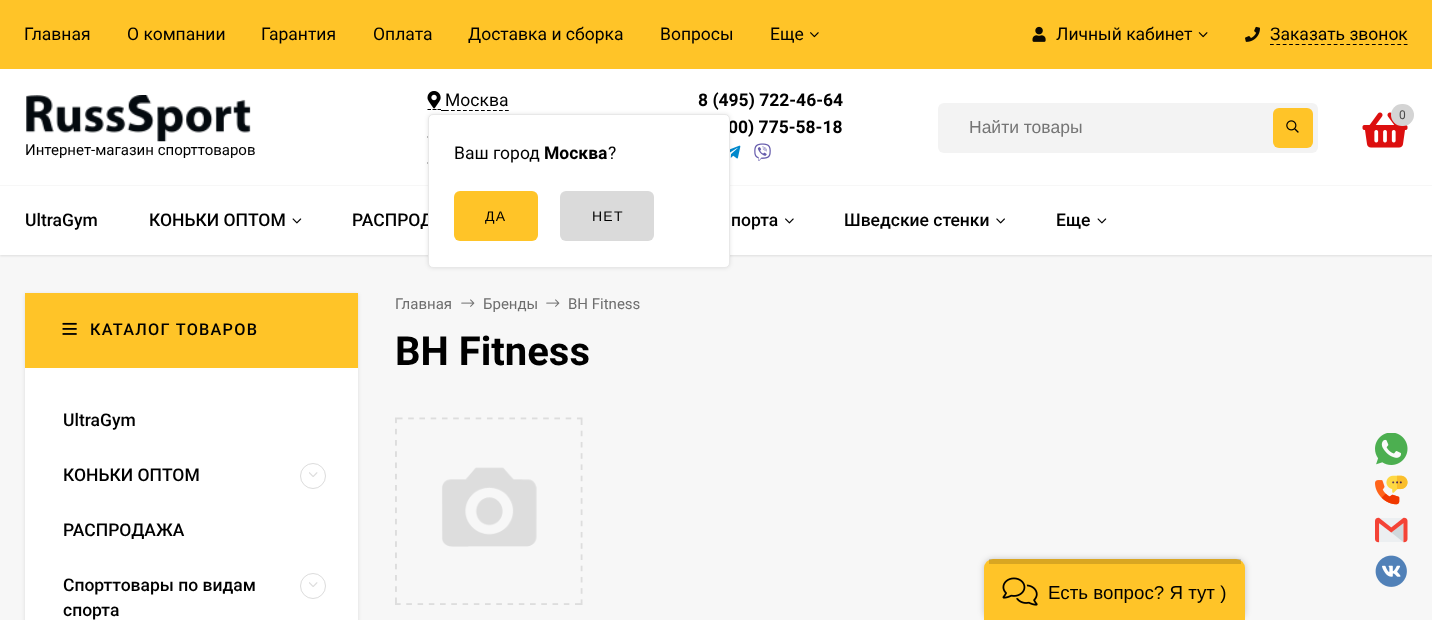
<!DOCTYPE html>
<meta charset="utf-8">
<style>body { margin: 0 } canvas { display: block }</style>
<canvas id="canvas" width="1432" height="620"></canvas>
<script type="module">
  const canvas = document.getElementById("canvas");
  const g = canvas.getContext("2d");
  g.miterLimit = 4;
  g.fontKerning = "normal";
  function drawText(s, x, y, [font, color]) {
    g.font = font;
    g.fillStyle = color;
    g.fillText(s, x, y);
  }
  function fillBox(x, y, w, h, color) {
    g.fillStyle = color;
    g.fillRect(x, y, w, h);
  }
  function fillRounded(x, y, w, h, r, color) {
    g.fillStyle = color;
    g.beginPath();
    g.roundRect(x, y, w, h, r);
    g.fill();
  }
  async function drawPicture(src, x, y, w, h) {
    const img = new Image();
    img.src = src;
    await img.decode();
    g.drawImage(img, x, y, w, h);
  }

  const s1 = ["17.5px Roboto", "#000000"];
  const s2 = ["15px Roboto", "#000000"];
  const s3 = ["bold 17.5px Roboto", "#000000"];
  const s4 = ["500 17.5px Roboto", "#000000"];
  const s5 = ["14px Liberation Sans", "#000000"];
  const s6 = ["12px Roboto", "#4A4A4A"];
  const s7 = ["17.5px Liberation Sans", "#757575"];
  const s8 = ["500 16.25px Roboto", "#000000"];
  const s9 = ["15px Roboto", "#6E6E6E"];
  const s10 = ["bold 40px Roboto", "#000000"];
  const s11 = ["18.75px Liberation Sans", "#000000"];

  fillBox(0, 0, 1432, 620, "#F7F7F7");
  fillBox(0, 0, 1432, 69, "#FFC428");
  drawText("Главная", 24, 40, s1);
  drawText("О компании", 127, 40, s1);
  drawText("Гарантия", 261, 40, s1);
  drawText("Оплата", 373, 40, s1);
  drawText("Доставка и сборка", 468, 40, s1);
  drawText("Вопросы", 660, 40, s1);
  drawText("Еще", 770, 40, s1);
  await drawPicture("pic1.png", 810, 32, 9, 6);
  await drawPicture("pic2.png", 1032, 26, 14, 16);
  drawText("Личный кабинет", 1056, 40, s1);
  await drawPicture("pic3.png", 1198, 32, 10, 6);
  await drawPicture("pic4.png", 1245, 26, 15, 16);
  g.beginPath();
  g.moveTo(1270, 44.5);
  g.lineTo(1407.5, 44.5);
  g.strokeStyle = "#000000";
  g.lineWidth = 1.2;
  g.setLineDash([3.75, 2.62]);
  g.stroke();
  drawText("Заказать звонок", 1270, 40, s1);
  fillBox(0, 69, 1432, 116, "#FFFFFF");
  await drawPicture("pic5.png", 26, 95, 225, 47);
  drawText("Интернет-магазин спорттоваров", 25, 155, s2);
  g.beginPath();
  g.moveTo(427.5, 109.5);
  g.lineTo(431, 109.5);
  g.moveTo(432.5, 109.5);
  g.lineTo(436.5, 109.5);
  g.moveTo(437.5, 109.5);
  g.lineTo(441, 109.5);
  g.setLineDash([]);
  g.stroke();
  fillBox(441, 110, 4, 1, "#000000");
  g.beginPath();
  g.moveTo(445, 110.5);
  g.lineTo(509, 110.5);
  g.setLineDash([3.75, 2.25]);
  g.stroke();
  await drawPicture("pic6.png", 427, 91, 14, 18);
  drawText("Москва", 445, 106, s1);
  g.beginPath();
  g.moveTo(427.5, 137);
  g.lineTo(637.5, 137);
  g.setLineDash([3.75, 2.5]);
  g.stroke();
  g.beginPath();
  g.moveTo(427.5, 163);
  g.lineTo(512.5, 163);
  g.stroke();
  await drawPicture("pic7.png", 730, 145, 11, 14);
  g.fillStyle = "rgba(0, 0, 0, 0.1)";
  g.filter = "blur(1px)";
  g.beginPath();
  g.rect(0, 188, 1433, 68);
  g.fill();
  g.filter = "none";
  fillBox(0, 186, 1432, 69, "#FFFFFF");
  g.fillStyle = "rgba(0, 0, 0, 0.1)";
  g.filter = "blur(2px)";
  g.beginPath();
  g.roundRect(428, 114, 302, 154, 5);
  g.fill();
  g.filter = "none";
  drawText("00) 775-58-18", 728, 133, s3);
  drawText("РАСПРОД", 352, 226, s4);
  g.fillStyle = "#FFFFFF";
  g.beginPath();
  g.roundRect(428.5, 114.5, 301, 153, 4.5);
  g.fill();
  g.strokeStyle = "#E8E8E8";
  g.lineWidth = 1;
  g.setLineDash([]);
  g.stroke();
  drawText("Ваш город", 454, 159, s1);
  drawText("Москва", 544, 159, s3);
  drawText("?", 608, 159, s1);
  fillRounded(454, 191, 84, 50, 6, "#FFC428");
  g.letterSpacing = "1.25px";
  drawText("ДА", 485, 221, s5);
  fillRounded(560, 191, 94, 50, 6, "#DADADA");
  drawText("НЕТ", 592, 221, s5);
  g.letterSpacing = "0px";
  drawText("8 (495) 722-46-64", 698, 106, s3);
  await drawPicture("pic8.png", 754, 143, 17, 18);
  await drawPicture("pic9.png", 1362, 112, 46, 36);
  fillRounded(1391, 104, 23, 22, 11, "#D4D4D4");
  drawText("0", 1399, 119, s6);
  fillRounded(938, 103, 380, 50, 6, "#F3F3F3");
  drawText("Найти товары", 969, 133, s7);
  fillRounded(1273, 108, 40, 40, 6, "#FFC428");
  await drawPicture("pic10.png", 1286, 120, 13, 13);
  drawText("UltraGym", 25, 226, s4);
  drawText("КОНЬКИ ОПТОМ", 149, 226, s4);
  await drawPicture("pic11.png", 292, 218, 10, 6);
  drawText("порта", 731, 226, s4);
  await drawPicture("pic12.png", 785, 218, 9, 6);
  drawText("Шведские стенки", 844, 226, s4);
  await drawPicture("pic13.png", 996, 218, 9, 6);
  drawText("Еще", 1056, 226, s4);
  await drawPicture("pic11.png", 1097, 218, 10, 6);
  g.fillStyle = "rgba(0, 0, 0, 0.1)";
  g.filter = "blur(2px)";
  g.beginPath();
  g.rect(25, 294, 333, 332);
  g.fill();
  g.filter = "none";
  fillBox(25, 293, 333, 75, "#FFC428");
  await drawPicture("pic14.png", 62, 322, 15, 13);
  g.letterSpacing = "1.25px";
  drawText("КАТАЛОГ ТОВАРОВ", 90, 335, s8);
  fillBox(25, 368, 333, 252, "#FFFFFF");
  g.letterSpacing = "0px";
  drawText("UltraGym", 63, 426, s4);
  drawText("КОНЬКИ ОПТОМ", 63, 481, s4);
  g.beginPath();
  g.arc(313, 476, 12.5, 0, Math.PI * 2);
  g.strokeStyle = "#DCDCDC";
  g.stroke();
  await drawPicture("pic15.png", 309, 472, 9, 5);
  drawText("РАСПРОДАЖА", 63, 536, s4);
  drawText("Спорттовары по видам", 63, 591, s4);
  drawText("спорта", 63, 616, s4);
  g.beginPath();
  g.arc(313, 586, 12.5, 0, Math.PI * 2);
  g.stroke();
  await drawPicture("pic15.png", 309, 582, 9, 5);
  drawText("Главная", 395, 309, s9);
  await drawPicture("pic16.png", 461, 299, 14, 8);
  drawText("Бренды", 483, 309, s9);
  await drawPicture("pic16.png", 546, 299, 14, 8);
  drawText("BH Fitness", 568, 309, s9);
  drawText("BH Fitness", 395, 365, s10);
  await drawPicture("pic17.png", 395, 417, 188, 188);
  await drawPicture("pic18.png", 1375, 433, 33, 32);
  await drawPicture("pic19.png", 1375, 475, 33, 30);
  await drawPicture("pic20.png", 1375, 517, 33, 26);
  await drawPicture("pic21.png", 1375, 555, 32, 32);
  g.fillStyle = "rgba(0, 0, 0, 0.2)";
  g.filter = "blur(3px)";
  g.beginPath();
  g.roundRect(984, 559, 261, 61, 9);
  g.fill();
  g.filter = "none";
  g.fillStyle = "#FFC428";
  g.beginPath();
  g.roundRect(984, 559, 261, 61, [9, 9, 0, 0]);
  g.fill();
  fillBox(989, 559, 252, 5, "rgba(0, 0, 0, 0.15)");
  await drawPicture("pic22.png", 1002, 577, 36, 29);
  drawText("Есть вопрос? Я тут )", 1048, 599, s11);
</script>
